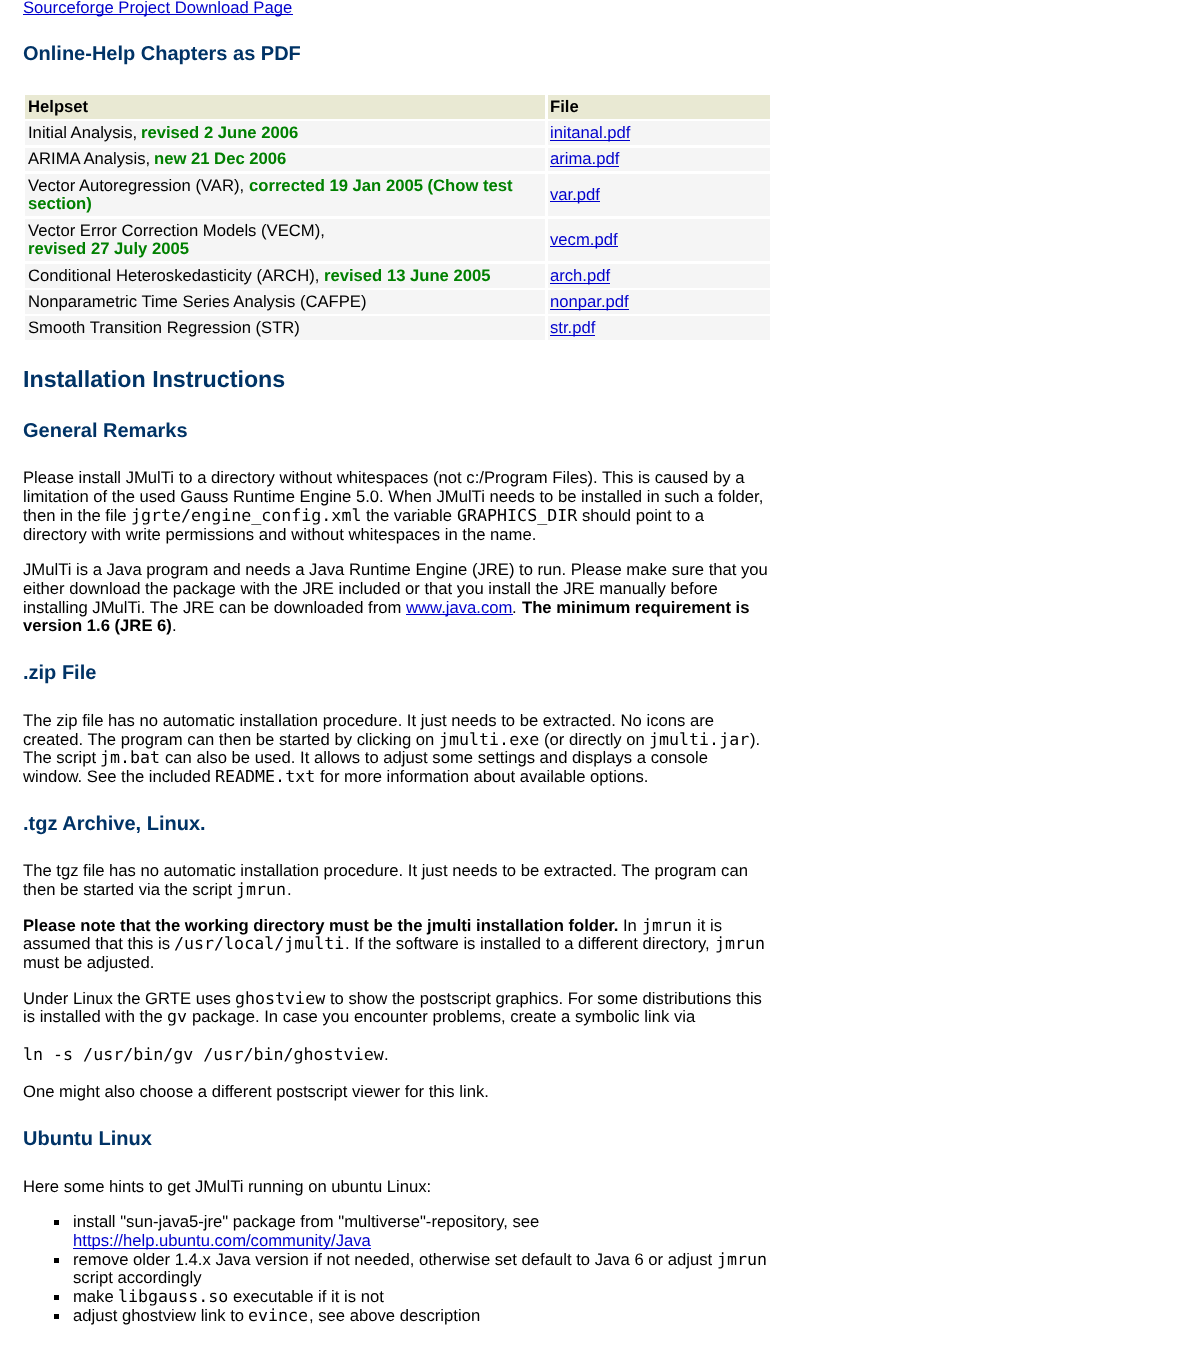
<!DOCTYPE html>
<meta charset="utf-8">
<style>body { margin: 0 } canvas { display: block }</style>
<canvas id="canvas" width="1202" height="1363"></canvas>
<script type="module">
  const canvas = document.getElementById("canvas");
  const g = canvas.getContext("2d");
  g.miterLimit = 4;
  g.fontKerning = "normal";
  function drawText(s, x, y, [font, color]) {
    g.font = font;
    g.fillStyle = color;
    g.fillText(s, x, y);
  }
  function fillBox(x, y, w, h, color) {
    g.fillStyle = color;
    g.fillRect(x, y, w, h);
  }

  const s1 = ["16.65px Liberation Sans", "#0000CC"];
  const s2 = ["bold 20px Liberation Sans", "#003366"];
  const s3 = ["bold 16.65px Liberation Sans", "#000000"];
  const s4 = ["16.65px Liberation Sans", "#000000"];
  const s5 = ["bold 16.65px Liberation Sans", "#008000"];
  const s6 = ["bold 23.25px Liberation Sans", "#003366"];
  const s7 = ["16.65px DejaVu Sans Mono", "#000000"];

  fillBox(0, 0, 1202, 1363, "#FFFFFF");
  fillBox(23, 14, 270, 1, "#0000CC");
  drawText("Sourceforge Project Download Page", 23, 13, s1);
  drawText("Online-Help Chapters as PDF", 23, 60, s2);
  fillBox(25, 95, 520, 24, "#E9E9D3");
  drawText("Helpset", 28, 112, s3);
  fillBox(548, 95, 222, 24, "#E9E9D3");
  drawText("File", 550, 112, s3);
  fillBox(25, 121, 520, 24, "#F5F5F5");
  drawText("Initial Analysis,", 28, 138, s4);
  drawText("revised 2 June 2006", 141, 138, s5);
  fillBox(548, 121, 222, 24, "#F5F5F5");
  fillBox(550, 140, 80, 1, "#0000CC");
  drawText("initanal.pdf", 550, 138, s1);
  fillBox(25, 148, 520, 23, "#F5F5F5");
  drawText("ARIMA Analysis,", 28, 164, s4);
  drawText("new 21 Dec 2006", 154, 164, s5);
  fillBox(548, 148, 222, 23, "#F5F5F5");
  fillBox(550, 166, 69, 1, "#0000CC");
  drawText("arima.pdf", 550, 164, s1);
  fillBox(25, 174, 520, 42, "#F5F5F5");
  drawText("Vector Autoregression (VAR),", 28, 191, s4);
  drawText("corrected 19 Jan 2005 (Chow test", 249, 191, s5);
  drawText("section)", 28, 209, s5);
  fillBox(548, 174, 222, 42, "#F5F5F5");
  fillBox(550, 201, 50, 1, "#0000CC");
  drawText("var.pdf", 550, 200, s1);
  fillBox(25, 219, 520, 42, "#F5F5F5");
  drawText("Vector Error Correction Models (VECM),", 28, 236, s4);
  drawText("revised 27 July 2005", 28, 254, s5);
  fillBox(548, 219, 222, 42, "#F5F5F5");
  fillBox(550, 246, 68, 1, "#0000CC");
  drawText("vecm.pdf", 550, 245, s1);
  fillBox(25, 264, 520, 24, "#F5F5F5");
  drawText("Conditional Heteroskedasticity (ARCH),", 28, 281, s4);
  drawText("revised 13 June 2005", 324, 281, s5);
  fillBox(548, 264, 222, 24, "#F5F5F5");
  fillBox(550, 283, 60, 1, "#0000CC");
  drawText("arch.pdf", 550, 281, s1);
  fillBox(25, 290, 520, 24, "#F5F5F5");
  drawText("Nonparametric Time Series Analysis (CAFPE)", 28, 307, s4);
  fillBox(548, 290, 222, 24, "#F5F5F5");
  fillBox(550, 309, 79, 1, "#0000CC");
  drawText("nonpar.pdf", 550, 307, s1);
  fillBox(25, 316, 520, 24, "#F5F5F5");
  drawText("Smooth Transition Regression (STR)", 28, 333, s4);
  fillBox(548, 316, 222, 24, "#F5F5F5");
  fillBox(550, 335, 45, 1, "#0000CC");
  drawText("str.pdf", 550, 333, s1);
  drawText("Installation Instructions", 23, 387, s6);
  drawText("General Remarks", 23, 437, s2);
  drawText("Please install JMulTi to a directory without whitespaces (not c:/Program Files). This is caused by a", 23, 483, s4);
  drawText("limitation of the used Gauss Runtime Engine 5.0. When JMulTi needs to be installed in such a folder,", 23, 502, s4);
  drawText("then in the file", 23, 521, s4);
  drawText("jgrte/engine_config.xml", 131, 521, s7);
  drawText("the variable", 366, 521, s4);
  drawText("GRAPHICS_DIR", 457, 521, s7);
  drawText("should point to a", 582, 521, s4);
  drawText("directory with write permissions and without whitespaces in the name.", 23, 540, s4);
  drawText("JMulTi is a Java program and needs a Java Runtime Engine (JRE) to run. Please make sure that you", 23, 575, s4);
  drawText("either download the package with the JRE included or that you install the JRE manually before", 23, 594, s4);
  drawText("installing JMulTi. The JRE can be downloaded from", 23, 613, s4);
  fillBox(406, 614, 107, 1, "#0000CC");
  drawText("www.java.com", 406, 613, s1);
  drawText(".", 512, 613, s4);
  drawText("The minimum requirement is", 522, 613, s3);
  drawText("version 1.6 (JRE 6)", 23, 631, s3);
  drawText(".", 172, 631, s4);
  drawText(".zip File", 23, 679, s2);
  drawText("The zip file has no automatic installation procedure. It just needs to be extracted. No icons are", 23, 726, s4);
  drawText("created. The program can then be started by clicking on", 23, 745, s4);
  drawText("jmulti.exe", 439, 745, s7);
  drawText("(or directly on", 544, 745, s4);
  drawText("jmulti.jar", 649, 745, s7);
  drawText(").", 750, 745, s4);
  drawText("The script", 23, 763, s4);
  drawText("jm.bat", 100, 763, s7);
  drawText("can also be used. It allows to adjust some settings and displays a console", 165, 763, s4);
  drawText("window. See the included", 23, 782, s4);
  drawText("README.txt", 215, 782, s7);
  drawText("for more information about available options.", 320, 782, s4);
  drawText(".tgz Archive, Linux.", 23, 830, s2);
  drawText("The tgz file has no automatic installation procedure. It just needs to be extracted. The program can", 23, 876, s4);
  drawText("then be started via the script", 23, 895, s4);
  drawText("jmrun", 236, 895, s7);
  drawText(".", 287, 895, s4);
  drawText("Please note that the working directory must be the jmulti installation folder.", 23, 931, s3);
  drawText("In", 623, 931, s4);
  drawText("jmrun", 642, 931, s7);
  drawText("it is", 697, 931, s4);
  drawText("assumed that this is", 23, 949, s4);
  drawText("/usr/local/jmulti", 174, 949, s7);
  drawText(". If the software is installed to a different directory,", 345, 949, s4);
  drawText("jmrun", 715, 949, s7);
  drawText("must be adjusted.", 23, 968, s4);
  drawText("Under Linux the GRTE uses", 23, 1004, s4);
  drawText("ghostview", 235, 1004, s7);
  drawText("to show the postscript graphics. For some distributions this", 330, 1004, s4);
  drawText("is installed with the", 23, 1022, s4);
  drawText("gv", 167, 1022, s7);
  drawText("package. In case you encounter problems, create a symbolic link via", 192, 1022, s4);
  drawText("ln -s /usr/bin/gv /usr/bin/ghostview", 23, 1060, s7);
  drawText(".", 384, 1060, s4);
  drawText("One might also choose a different postscript viewer for this link.", 23, 1097, s4);
  drawText("Ubuntu Linux", 23, 1145, s2);
  drawText("Here some hints to get JMulTi running on ubuntu Linux:", 23, 1192, s4);
  fillBox(54, 1220, 5, 5, "#000000");
  drawText("install \"sun-java5-jre\" package from \"multiverse\"-repository, see", 73, 1227, s4);
  fillBox(73, 1248, 298, 1, "#0000CC");
  drawText("https://help.ubuntu.com/community/Java", 73, 1246, s1);
  fillBox(54, 1258, 5, 5, "#000000");
  drawText("remove older 1.4.x Java version if not needed, otherwise set default to Java 6 or adjust", 73, 1265, s4);
  drawText("jmrun", 717, 1265, s7);
  drawText("script accordingly", 73, 1283, s4);
  fillBox(54, 1295, 5, 5, "#000000");
  drawText("make", 73, 1302, s4);
  drawText("libgauss.so", 118, 1302, s7);
  drawText("executable if it is not", 233, 1302, s4);
  fillBox(54, 1314, 5, 5, "#000000");
  drawText("adjust ghostview link to", 73, 1321, s4);
  drawText("evince", 248, 1321, s7);
  drawText(", see above description", 309, 1321, s4);
</script>
